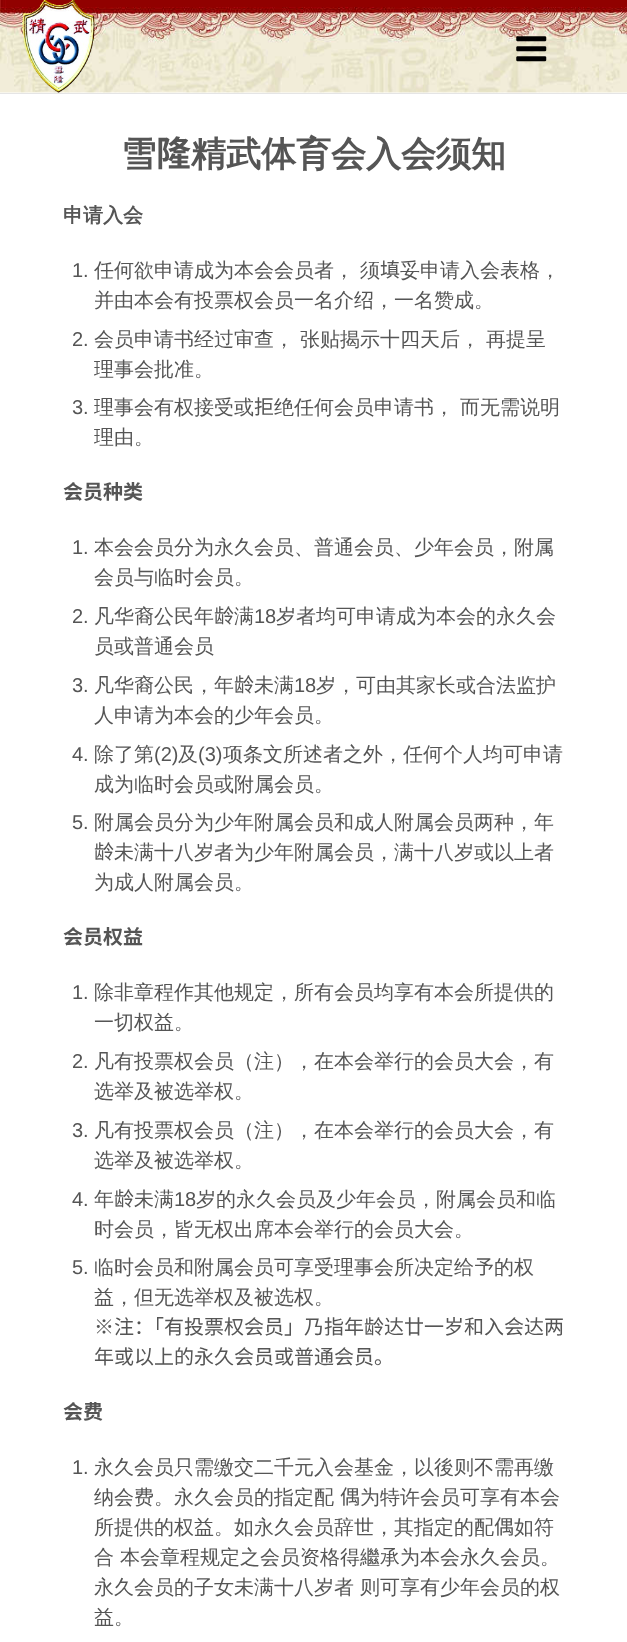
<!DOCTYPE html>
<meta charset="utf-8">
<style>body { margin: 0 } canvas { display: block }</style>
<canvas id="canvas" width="627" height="1642"></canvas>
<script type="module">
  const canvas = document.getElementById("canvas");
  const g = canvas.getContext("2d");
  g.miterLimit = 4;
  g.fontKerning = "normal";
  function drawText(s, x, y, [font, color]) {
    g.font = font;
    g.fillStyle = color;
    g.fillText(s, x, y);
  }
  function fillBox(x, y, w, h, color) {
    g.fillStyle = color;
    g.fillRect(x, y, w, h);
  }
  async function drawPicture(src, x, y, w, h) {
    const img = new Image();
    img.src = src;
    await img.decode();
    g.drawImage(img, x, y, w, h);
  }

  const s1 = ["bold 35px WenQuanYi Zen Hei", "#555555"];
  const s2 = ["bold 35px Noto Sans SC", "#555555"];
  const s3 = ["bold 20px WenQuanYi Zen Hei", "#555555"];
  const s4 = ["20px Liberation Sans", "#555555"];
  const s5 = ["500 20px WenQuanYi Zen Hei", "#555555"];
  const s6 = ["20px Noto Sans SC", "#555555"];
  const s7 = ["bold 20px Noto Sans SC", "#555555"];

  fillBox(0, 0, 627, 1642, "#FFFFFF");
  fillBox(0, 93, 627, 1, "#E5E5E5");
  await drawPicture("pic1.png", 0, 0, 627, 93);
  await drawPicture("pic2.png", 22, 0, 73, 93);
  await drawPicture("pic3.png", 516, 36, 31, 26);
  drawText("雪", 121, 166, s1);
  drawText("隆", 156, 166, s2);
  drawText("精武体育会入会须知", 191, 166, s1);
  drawText("申请入会", 63, 222, s3);
  drawText("1.", 72, 277, s4);
  drawText("任何欲申请成为本会会员者， 须", 94, 277, s5);
  drawText("填", 380, 277, s6);
  drawText("妥申请入会表格，", 400, 277, s5);
  drawText("并由本会有投票权会员一名介绍，一名赞成。", 94, 307, s5);
  drawText("2.", 72, 346, s4);
  drawText("会员申请书经过审查， 张贴揭示十四天后， 再提呈", 94, 346, s5);
  drawText("理事会批准。", 94, 376, s5);
  drawText("3.", 72, 414, s4);
  drawText("理事会有权接受或", 94, 414, s5);
  drawText("拒", 254, 414, s6);
  drawText("绝任何会员申请书， 而无需说明", 274, 414, s5);
  drawText("理由。", 94, 444, s5);
  drawText("会员种类", 63, 499, s7);
  drawText("1.", 72, 554, s4);
  drawText("本会会员分为永久会员、普通会员、少年会员，附属", 94, 554, s5);
  drawText("会员与临时会员。", 94, 584, s5);
  drawText("2.", 72, 623, s4);
  drawText("凡华裔公民年", 94, 623, s5);
  drawText("龄", 214, 623, s6);
  drawText("满", 234, 623, s5);
  drawText("18", 254, 623, s4);
  drawText("岁者均可申请成为本会的永久会", 276, 623, s5);
  drawText("员或普通会员", 94, 653, s5);
  drawText("3.", 72, 692, s4);
  drawText("凡华裔公民，年", 94, 692, s5);
  drawText("龄", 234, 692, s6);
  drawText("未满", 254, 692, s5);
  drawText("18", 294, 692, s4);
  drawText("岁，可由其家长或合法监护", 316, 692, s5);
  drawText("人申请为本会的少年会员。", 94, 722, s5);
  drawText("4.", 72, 761, s4);
  drawText("除了第", 94, 761, s5);
  drawText("(2)", 154, 761, s4);
  drawText("及", 178, 761, s5);
  drawText("(3)", 198, 761, s4);
  drawText("项条文所述者之外，任何个人均可申请", 223, 761, s5);
  drawText("成为临时会员或附属会员。", 94, 791, s5);
  drawText("5.", 72, 829, s4);
  drawText("附属会员分为少年附属会员和成人附属会员两种，年", 94, 829, s5);
  drawText("龄", 94, 859, s6);
  drawText("未满十八岁者为少年附属会员，满十八岁或以上者", 114, 859, s5);
  drawText("为成人附属会员。", 94, 889, s5);
  drawText("会员权益", 63, 944, s7);
  drawText("1.", 72, 999, s4);
  drawText("除非章程作其他规定，所有会员均享有本会所提供的", 94, 999, s5);
  drawText("一切权益。", 94, 1029, s5);
  drawText("2.", 72, 1068, s4);
  drawText("凡有投票权会员（注），在本会举行的会员大会，有", 94, 1068, s5);
  drawText("选举及被选举权。", 94, 1098, s5);
  drawText("3.", 72, 1137, s4);
  drawText("凡有投票权会员（注），在本会举行的会员大会，有", 94, 1137, s5);
  drawText("选举及被选举权。", 94, 1167, s5);
  drawText("4.", 72, 1206, s4);
  drawText("年", 94, 1206, s5);
  drawText("龄", 114, 1206, s6);
  drawText("未满", 134, 1206, s5);
  drawText("18", 174, 1206, s4);
  drawText("岁的永久会员及少年会员，附属会员和临", 196, 1206, s5);
  drawText("时会员，皆无权出席本会举行的会员大会。", 94, 1236, s5);
  drawText("5.", 72, 1274, s4);
  drawText("临时会员和附属会员可享受理事会所决定给", 94, 1274, s5);
  drawText("予", 474, 1274, s6);
  drawText("的权", 494, 1274, s5);
  drawText("益，但无选举权及被选权。", 94, 1304, s5);
  drawText("※注：「有投票权会员」乃指年龄达廿一岁和入会达两", 94, 1334, s6);
  drawText("年或以上的永久会员或普通会员。", 94, 1364, s6);
  drawText("会费", 63, 1419, s7);
  drawText("1.", 72, 1474, s4);
  drawText("永久会员只需缴交二千元入会基金，以後则不需再缴", 94, 1474, s5);
  drawText("纳会费。永久会员的指定配", 94, 1504, s5);
  drawText("偶", 340, 1504, s6);
  drawText("为特许会员可享有本会", 360, 1504, s5);
  drawText("所提供的权益。如永久会员辞世，其指定的配", 94, 1534, s5);
  drawText("偶", 494, 1534, s6);
  drawText("如符", 514, 1534, s5);
  drawText("合 本会章程规定之会员资格得繼承为本会永久会员。", 94, 1564, s5);
  drawText("永久会员的子女未满十八岁者 则可享有少年会员的权", 94, 1594, s5);
  drawText("益。", 94, 1624, s5);
</script>
